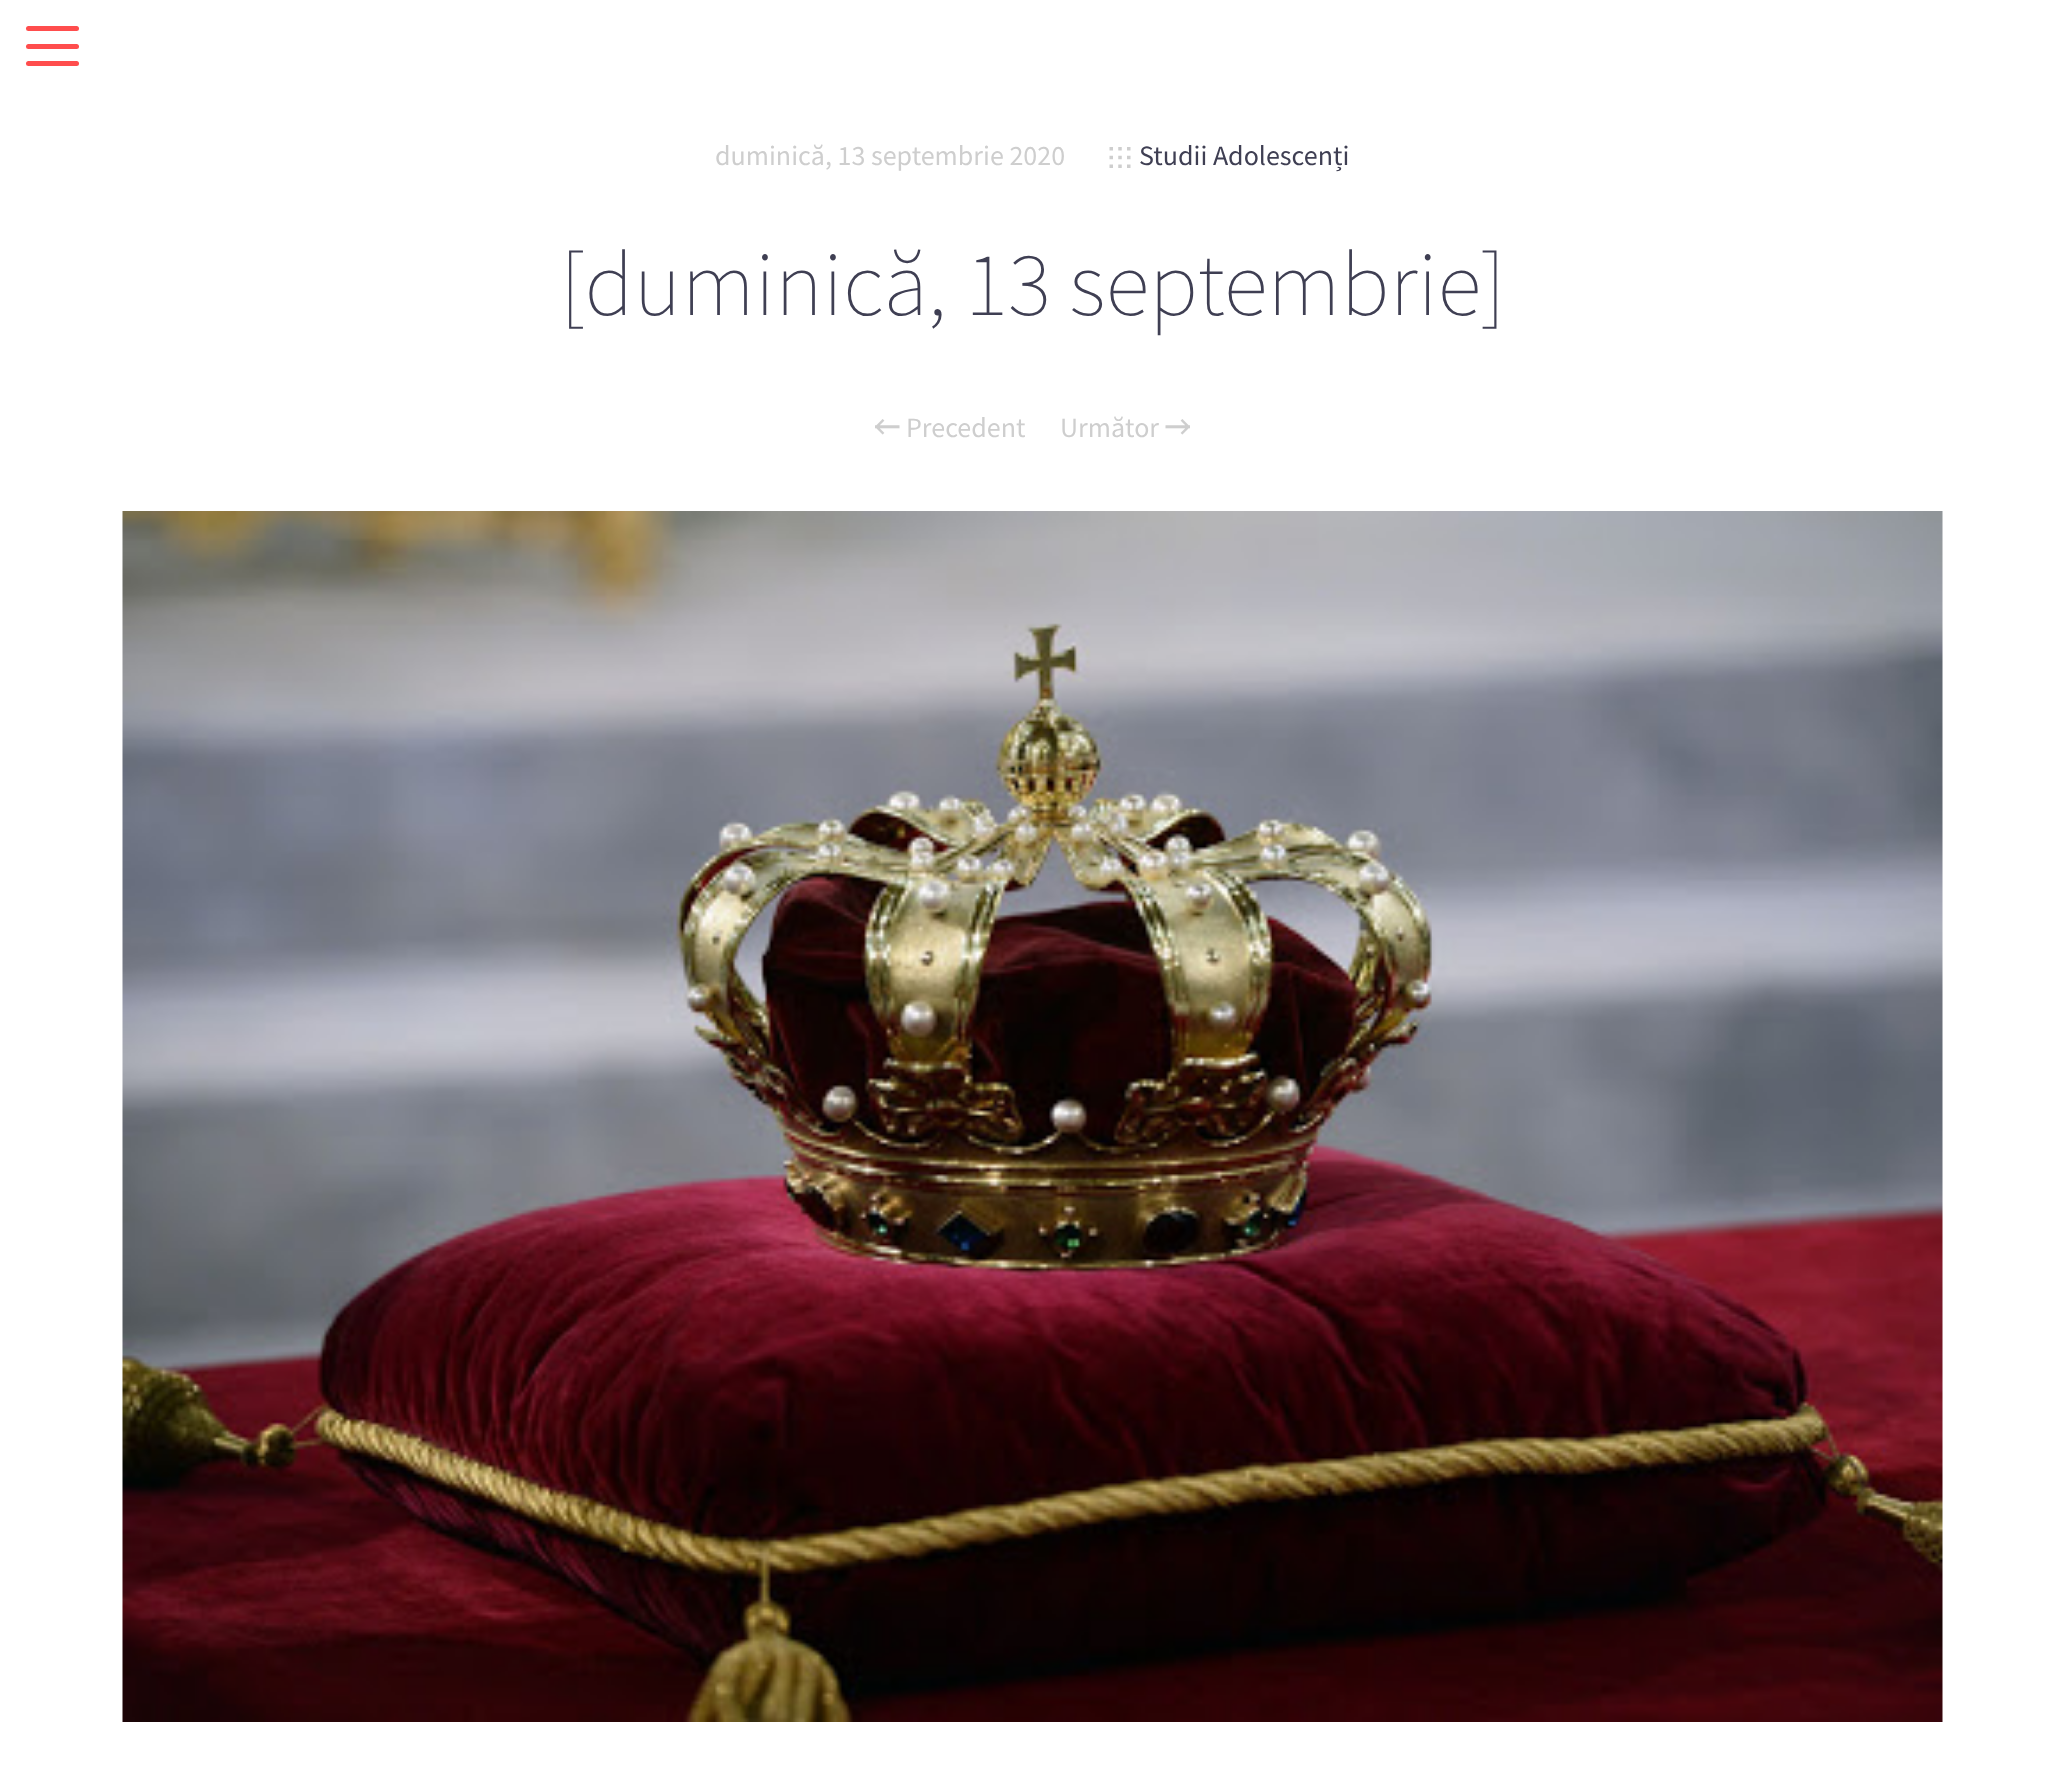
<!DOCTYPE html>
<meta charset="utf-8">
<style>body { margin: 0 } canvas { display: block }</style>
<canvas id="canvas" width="2064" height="1787"></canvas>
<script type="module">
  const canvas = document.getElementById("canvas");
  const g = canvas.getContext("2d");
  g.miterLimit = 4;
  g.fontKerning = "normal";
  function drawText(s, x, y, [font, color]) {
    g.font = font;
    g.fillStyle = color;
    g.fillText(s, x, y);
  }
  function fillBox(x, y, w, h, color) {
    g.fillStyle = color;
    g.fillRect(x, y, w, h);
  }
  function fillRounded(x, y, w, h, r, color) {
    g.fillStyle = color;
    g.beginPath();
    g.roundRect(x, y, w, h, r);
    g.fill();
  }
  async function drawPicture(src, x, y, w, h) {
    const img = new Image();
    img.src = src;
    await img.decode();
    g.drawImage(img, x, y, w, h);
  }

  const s1 = ["28px Source Sans Pro", "#CECECE"];
  const s2 = ["28px Source Sans Pro", "#3F3F53"];
  const s3 = ["200 91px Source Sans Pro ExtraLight", "#3F3F53"];

  fillBox(0, 0, 2064, 1787, "#FFFFFF");
  fillRounded(26, 44, 53, 5, 2.5, "#FF4D4D");
  fillRounded(26, 26, 53, 5, 2.5, "#FF4D4D");
  fillRounded(26, 61, 53, 5, 2.5, "#FF4D4D");
  drawText("duminică, 13 septembrie 2020", 715, 165, s1);
  await drawPicture("pic1.png", 1109, 147, 22, 21);
  drawText("Studii Adolescenți", 1139, 165, s2);
  drawText("[duminică, 13 septembrie]", 560, 315, s3);
  await drawPicture("pic2.png", 875, 419, 25, 16);
  drawText("Precedent", 906, 437, s1);
  drawText("Următor", 1060, 437, s1);
  await drawPicture("pic3.png", 1165, 419, 25, 16);
  await drawPicture("pic4.png", 122, 511, 1821, 1211);
</script>
